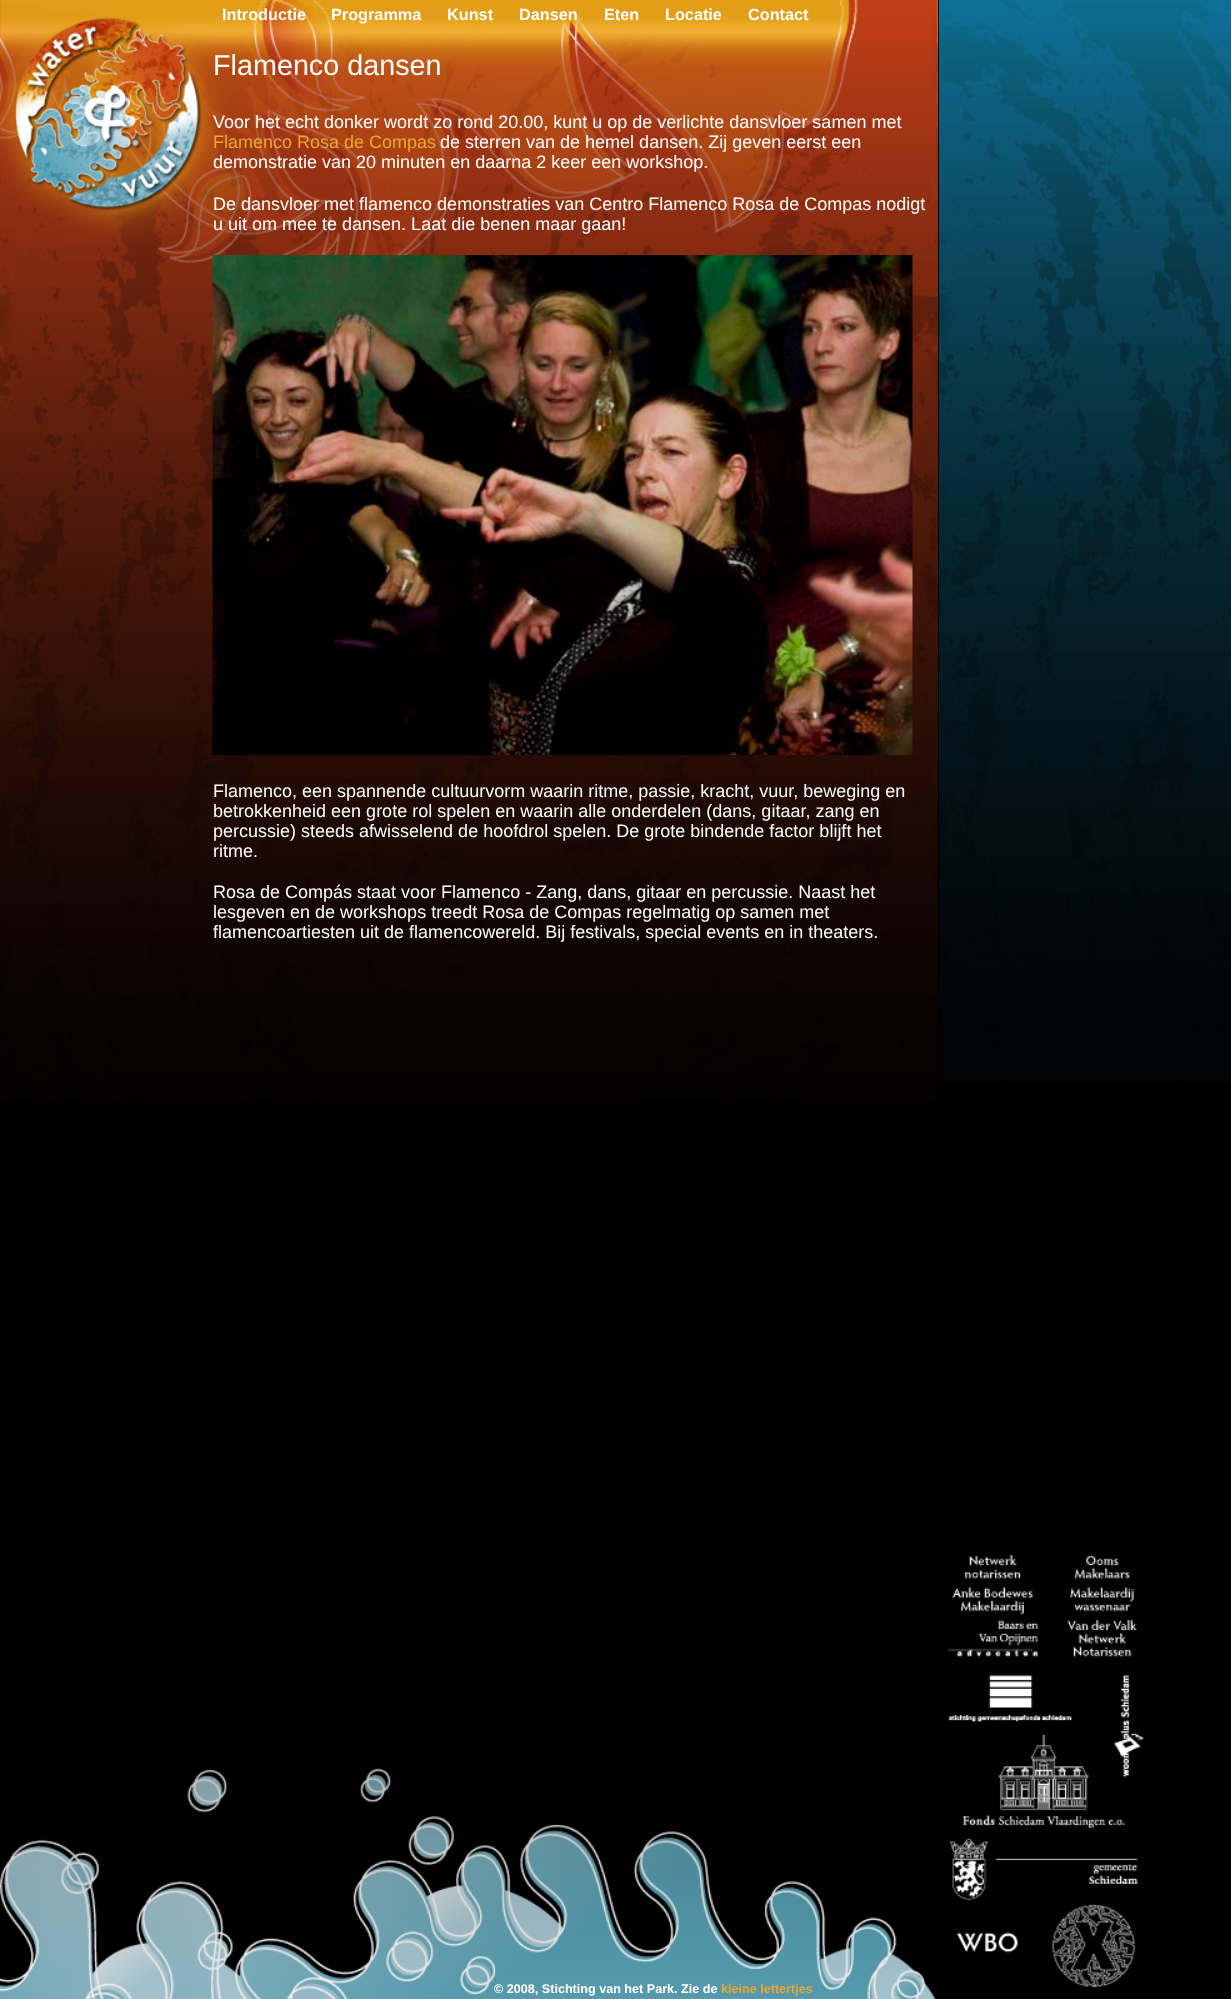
<!DOCTYPE html>
<meta charset="utf-8">
<style>body { margin: 0 } canvas { display: block }</style>
<canvas id="canvas" width="1231" height="1999"></canvas>
<script type="module">
  const canvas = document.getElementById("canvas");
  const g = canvas.getContext("2d");
  g.miterLimit = 4;
  g.fontKerning = "normal";
  function drawText(s, x, y, [font, color]) {
    g.font = font;
    g.fillStyle = color;
    g.fillText(s, x, y);
  }
  function fillBox(x, y, w, h, color) {
    g.fillStyle = color;
    g.fillRect(x, y, w, h);
  }
  async function drawPicture(src, x, y, w, h) {
    const img = new Image();
    img.src = src;
    await img.decode();
    g.drawImage(img, x, y, w, h);
  }

  const s1 = ["bold 16.25px Liberation Sans", "#FFFFFF"];
  const s2 = ["28.75px Liberation Sans", "#FFFFFF"];
  const s3 = ["18px Liberation Sans", "#FFFFFF"];
  const s4 = ["18px Liberation Sans", "#EEA62F"];
  const s5 = ["bold 12.6px Liberation Sans", "#FFFFFF"];
  const s6 = ["bold 12.6px Liberation Sans", "#EEA62F"];

  fillBox(0, 0, 1231, 1999, "#000000");
  await drawPicture("pic1.png", 939, 0, 292, 1082);
  await drawPicture("pic2.png", 0, 0, 938, 1100);
  drawText("Introductie", 222, 20, s1);
  drawText("Programma", 331, 20, s1);
  drawText("Kunst", 447, 20, s1);
  drawText("Dansen", 519, 20, s1);
  drawText("Eten", 604, 20, s1);
  drawText("Locatie", 665, 20, s1);
  drawText("Contact", 748, 20, s1);
  drawText("Flamenco dansen", 213, 75, s2);
  drawText("Voor het echt donker wordt zo rond 20.00, kunt u op de verlichte dansvloer samen met", 213, 128, s3);
  drawText("Flamenco Rosa de Compas", 213, 148, s4);
  drawText("de sterren van de hemel dansen. Zij geven eerst een", 440, 148, s3);
  drawText("demonstratie van 20 minuten en daarna 2 keer een workshop.", 213, 168, s3);
  drawText("De dansvloer met flamenco demonstraties van Centro Flamenco Rosa de Compas nodigt", 213, 210, s3);
  drawText("u uit om mee te dansen. Laat die benen maar gaan!", 213, 230, s3);
  await drawPicture("pic3.png", 212, 255, 701, 500);
  drawText("Flamenco, een spannende cultuurvorm waarin ritme, passie, kracht, vuur, beweging en", 213, 797, s3);
  drawText("betrokkenheid een grote rol spelen en waarin alle onderdelen (dans, gitaar, zang en", 213, 817, s3);
  drawText("percussie) steeds afwisselend de hoofdrol spelen. De grote bindende factor blijft het", 213, 837, s3);
  drawText("ritme.", 213, 857, s3);
  drawText("Rosa de Compás staat voor Flamenco - Zang, dans, gitaar en percussie. Naast het", 213, 898, s3);
  drawText("lesgeven en de workshops treedt Rosa de Compas regelmatig op samen met", 213, 918, s3);
  drawText("flamencoartiesten uit de flamencowereld. Bij festivals, special events en in theaters.", 213, 938, s3);
  await drawPicture("pic4.png", 947, 1554, 197, 434);
  await drawPicture("pic5.png", 0, 1768, 936, 231);
  drawText("© 2008, Stichting van het Park. Zie de", 494, 1993, s5);
  drawText("kleine lettertjes", 721, 1993, s6);
</script>
